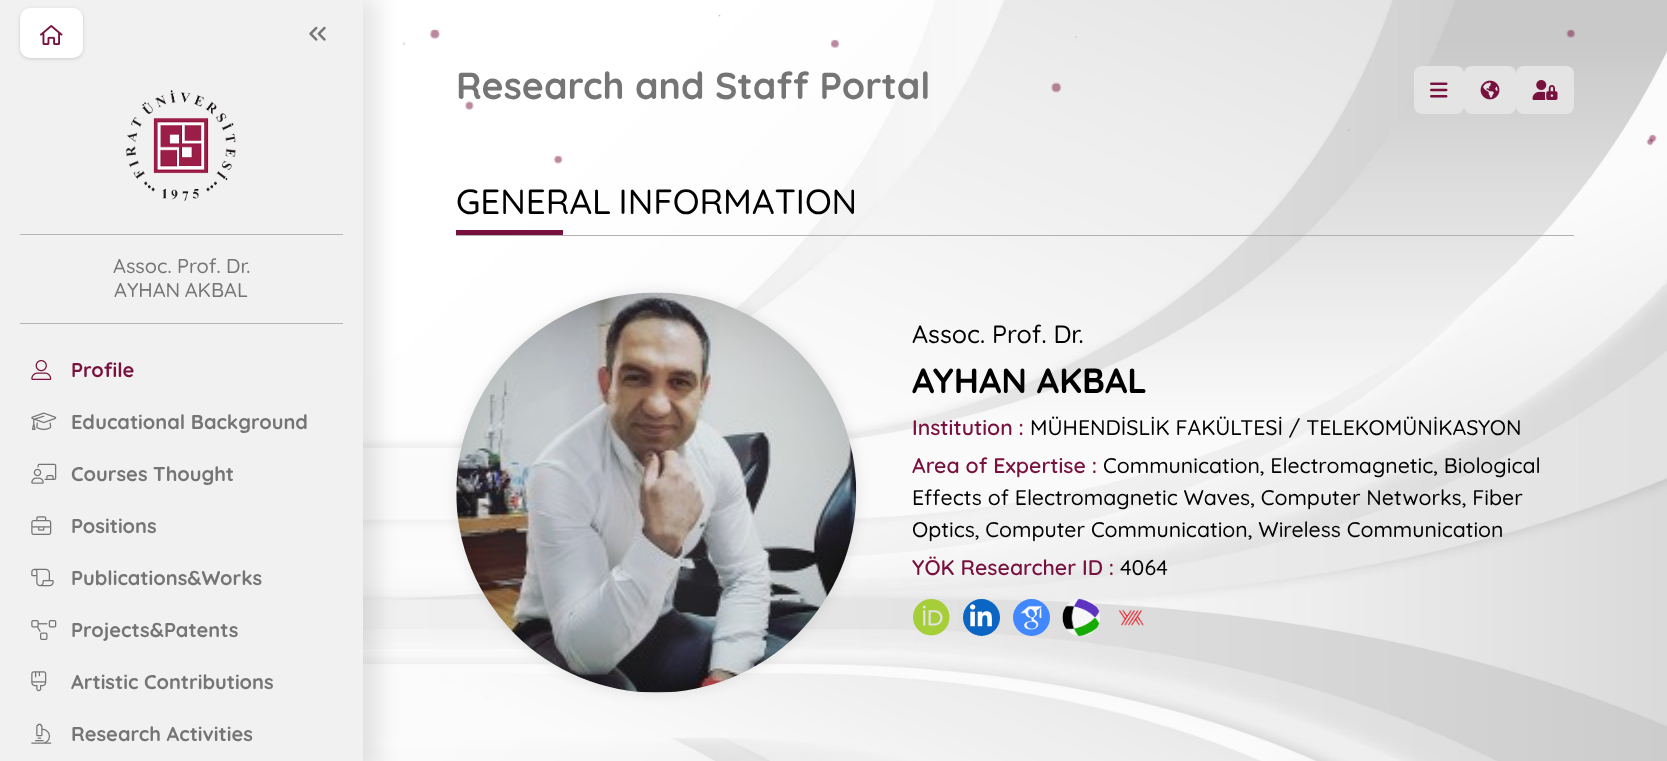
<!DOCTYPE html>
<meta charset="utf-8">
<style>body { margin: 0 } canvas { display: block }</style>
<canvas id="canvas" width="1667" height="761"></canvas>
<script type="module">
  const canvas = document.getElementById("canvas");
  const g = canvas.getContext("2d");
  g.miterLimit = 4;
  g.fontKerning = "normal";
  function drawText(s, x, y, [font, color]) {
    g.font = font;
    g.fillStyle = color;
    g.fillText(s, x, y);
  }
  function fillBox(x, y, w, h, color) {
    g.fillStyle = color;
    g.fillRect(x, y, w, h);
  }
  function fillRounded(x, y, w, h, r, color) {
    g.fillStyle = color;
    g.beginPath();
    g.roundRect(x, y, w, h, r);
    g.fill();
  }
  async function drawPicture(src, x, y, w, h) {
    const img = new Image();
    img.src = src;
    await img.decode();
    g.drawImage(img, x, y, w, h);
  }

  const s1 = ["bold 37.5px Quicksand", "#757575"];
  const s2 = ["500 20px Quicksand", "#757575"];
  const s3 = ["bold 20px Quicksand", "#78113E"];
  const s4 = ["bold 20px Quicksand", "#757575"];
  const s5 = ["500 35px Quicksand", "#000000"];
  const s6 = ["500 25px Quicksand", "#000000"];
  const s7 = ["bold 35px Quicksand", "#000000"];
  const s8 = ["600 21.25px Quicksand", "#78113E"];
  const s9 = ["500 21.25px Quicksand", "#000000"];

  fillBox(0, 0, 1667, 761, "#FFFFFF");
  await drawPicture("pic12.png", 363, 0, 1304, 761);
  drawText("Research and Staff Portal", 456, 99, s1);
  await drawPicture("pic13.png", 402, 15, 1255, 149);
  g.fillStyle = "rgba(0, 0, 0, 0.1)";
  g.filter = "blur(10.5px)";
  g.beginPath();
  g.rect(0, -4, 378, 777);
  g.fill();
  g.filter = "none";
  fillBox(0, 0, 363, 761, "#F1F1F1");
  g.fillStyle = "rgba(0, 0, 0, 0.06)";
  g.filter = "blur(1px)";
  g.beginPath();
  g.roundRect(20, 9, 63, 50, 10);
  g.fill();
  g.filter = "none";
  g.fillStyle = "rgba(0, 0, 0, 0.1)";
  g.filter = "blur(2px)";
  g.beginPath();
  g.roundRect(20, 9, 63, 50, 10);
  g.fill();
  g.filter = "none";
  fillRounded(20, 8, 63, 50, 10, "#FFFFFF");
  await drawPicture("pic1.png", 40, 25, 23, 20);
  await drawPicture("pic2.png", 309, 26, 17, 15);
  await drawPicture("pic3.png", 125, 90, 111, 111);
  fillBox(20, 234, 323, 1, "#B5B5B5");
  drawText("Assoc. Prof. Dr.", 113, 273, s2);
  g.wordSpacing = "-1px";
  drawText("AYHAN AKBAL", 114, 297, s2);
  fillBox(20, 323, 323, 1, "#B5B5B5");
  await drawPicture("pic4.png", 31, 360, 21, 20);
  g.wordSpacing = "0px";
  drawText("Profile", 71, 377, s3);
  await drawPicture("pic5.png", 31, 412, 26, 18);
  drawText("Educational Background", 71, 429, s4);
  await drawPicture("pic6.png", 31, 463, 26, 21);
  drawText("Courses Thought", 71, 481, s4);
  await drawPicture("pic7.png", 31, 516, 21, 19);
  drawText("Positions", 71, 533, s4);
  await drawPicture("pic8.png", 31, 568, 23, 19);
  drawText("Publications&Works", 71, 585, s4);
  await drawPicture("pic9.png", 31, 620, 26, 20);
  drawText("Projects&Patents", 71, 637, s4);
  await drawPicture("pic10.png", 31, 671, 16, 21);
  drawText("Artistic Contributions", 71, 689, s4);
  await drawPicture("pic11.png", 31, 723, 21, 21);
  drawText("Research Activities", 71, 741, s4);
  fillRounded(1414, 66, 50, 48, 8, "#E4E4E4");
  await drawPicture("pic14.png", 1430, 82, 18, 16);
  fillRounded(1464, 66, 52, 48, 8, "#E4E4E4");
  await drawPicture("pic15.png", 1480, 80, 20, 20);
  fillRounded(1516, 66, 58, 48, 8, "#E4E4E4");
  await drawPicture("pic16.png", 1532, 80, 26, 20);
  fillBox(456, 235, 1118, 1, "#B1B1B1");
  g.wordSpacing = "-2px";
  drawText("GENERAL INFORMATION", 456, 214, s5);
  fillBox(456, 230, 107, 5, "#78113E");
  g.fillStyle = "rgba(0, 0, 0, 0.07)";
  g.filter = "blur(6px)";
  g.beginPath();
  g.roundRect(454, 290, 405, 405, 202.5);
  g.fill();
  g.filter = "none";
  await drawPicture("pic17.png", 456, 292, 401, 401);
  g.wordSpacing = "0px";
  drawText("Assoc. Prof. Dr.", 912, 343, s6);
  drawText("AYHAN AKBAL", 912, 393, s7);
  drawText("Institution :", 912, 435, s8);
  drawText("MÜHENDİSLİK FAKÜLTESİ / TELEKOMÜNİKASYON", 1030, 435, s9);
  drawText("Area of Expertise :", 912, 473, s8);
  drawText("Communication, Electromagnetic, Biological", 1103, 473, s9);
  drawText("Effects of Electromagnetic Waves, Computer Networks, Fiber", 912, 505, s9);
  drawText("Optics, Computer Communication, Wireless Communication", 912, 537, s9);
  drawText("YÖK Researcher ID :", 912, 575, s8);
  drawText("4064", 1120, 575, s9);
  await drawPicture("pic18.png", 913, 599, 37, 37);
  g.fillStyle = "#0B65C2";
  g.beginPath();
  g.arc(981.5, 617.5, 18.5, 0, Math.PI * 2);
  g.fill();
  await drawPicture("pic19.png", 970, 604, 22, 23);
  g.fillStyle = "#4187FD";
  g.beginPath();
  g.arc(1031.5, 617.5, 18.5, 0, Math.PI * 2);
  g.fill();
  await drawPicture("pic20.png", 1020, 605, 22, 25);
  await drawPicture("pic21.png", 1062, 598, 38, 39);
  await drawPicture("pic22.png", 1118, 609, 26, 17);
</script>
